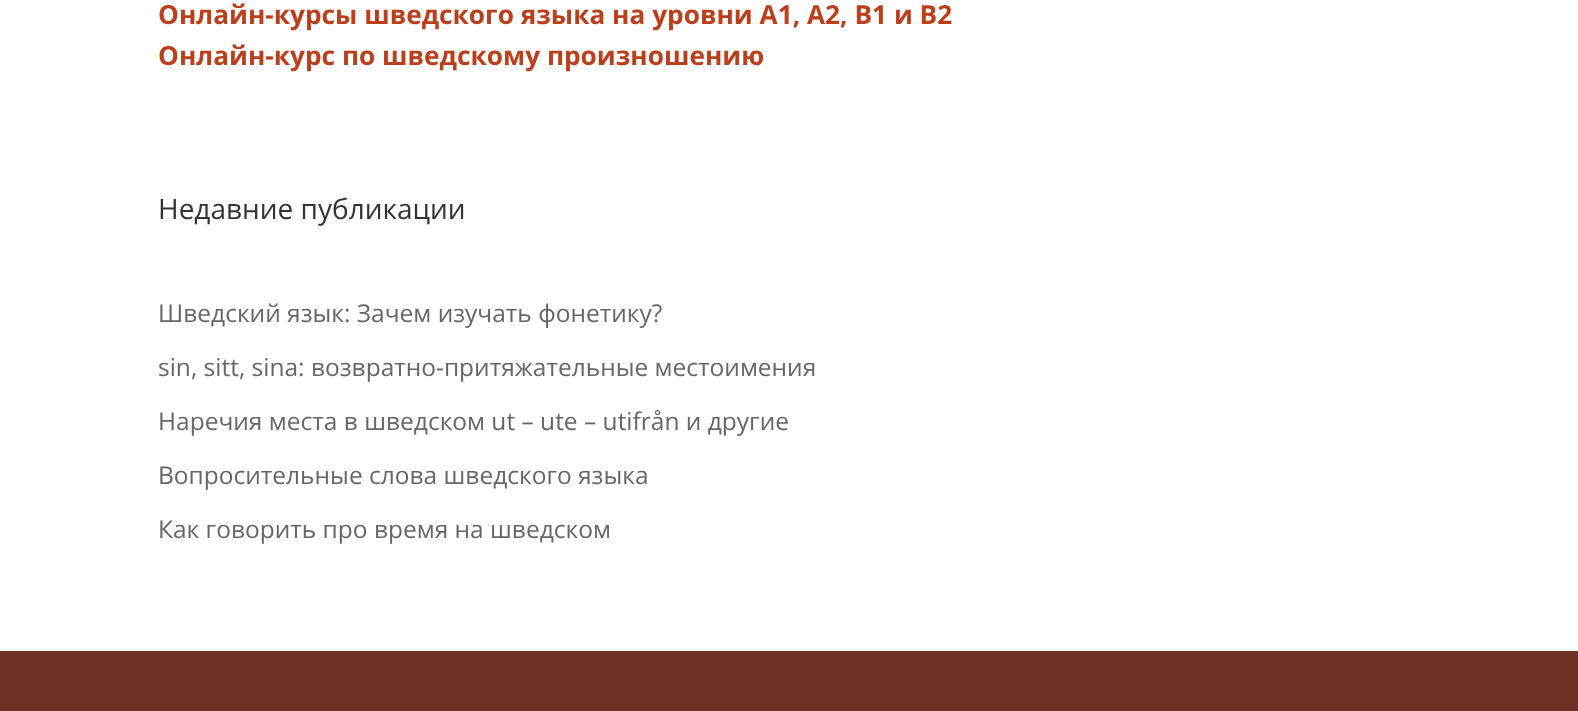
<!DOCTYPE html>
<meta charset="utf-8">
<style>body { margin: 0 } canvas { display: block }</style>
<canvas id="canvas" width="1578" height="711"></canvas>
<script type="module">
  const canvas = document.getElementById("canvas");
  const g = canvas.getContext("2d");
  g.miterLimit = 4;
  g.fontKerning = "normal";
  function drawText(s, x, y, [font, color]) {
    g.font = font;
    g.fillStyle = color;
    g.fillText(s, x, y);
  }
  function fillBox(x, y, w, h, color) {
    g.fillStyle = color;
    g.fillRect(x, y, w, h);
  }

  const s1 = ["bold 26.25px Open Sans", "#BA3F1D"];
  const s2 = ["28px Open Sans", "#333333"];
  const s3 = ["24.5px Open Sans", "#666666"];

  fillBox(0, 0, 1578, 711, "#FFFFFF");
  drawText("Онлайн-курсы шведского языка на уровни А1, А2, В1 и В2", 158, 24, s1);
  drawText("Онлайн-курс по шведскому произношению", 158, 65, s1);
  drawText("Недавние публикации", 158, 219, s2);
  drawText("Шведский язык: Зачем изучать фонетику?", 158, 322, s3);
  drawText("sin, sitt, sina: возвратно-притяжательные местоимения", 158, 376, s3);
  drawText("Наречия места в шведском ut – ute – utifrån и другие", 158, 430, s3);
  drawText("Вопросительные слова шведского языка", 158, 484, s3);
  drawText("Как говорить про время на шведском", 158, 538, s3);
  fillBox(0, 651, 1578, 60, "#6E3225");
</script>
